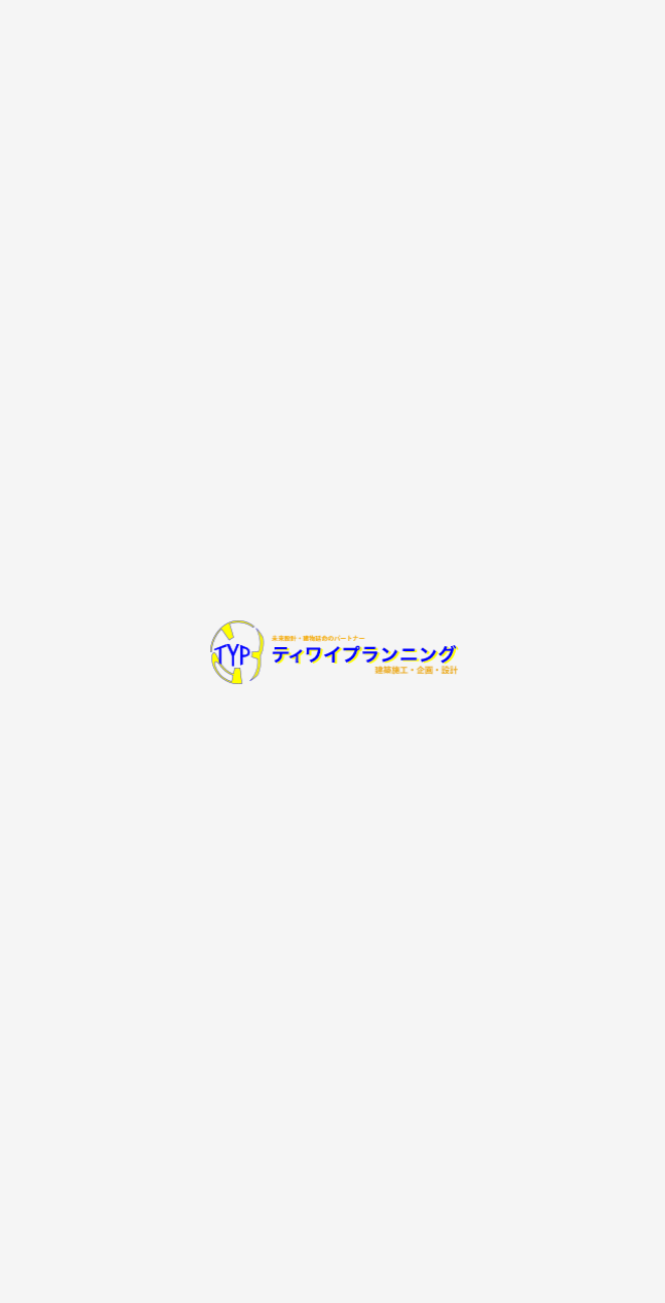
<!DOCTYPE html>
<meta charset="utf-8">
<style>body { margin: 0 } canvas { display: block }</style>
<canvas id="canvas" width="665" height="1303"></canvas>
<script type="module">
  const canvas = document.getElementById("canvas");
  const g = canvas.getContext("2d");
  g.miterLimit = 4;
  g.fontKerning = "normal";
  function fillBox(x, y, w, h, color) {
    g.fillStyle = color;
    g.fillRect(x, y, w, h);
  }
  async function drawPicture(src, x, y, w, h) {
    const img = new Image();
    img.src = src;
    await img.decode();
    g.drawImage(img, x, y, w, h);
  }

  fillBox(0, 0, 665, 1303, "#F5F5F5");
  await drawPicture("pic1.png", 210, 620, 249, 65);
</script>
